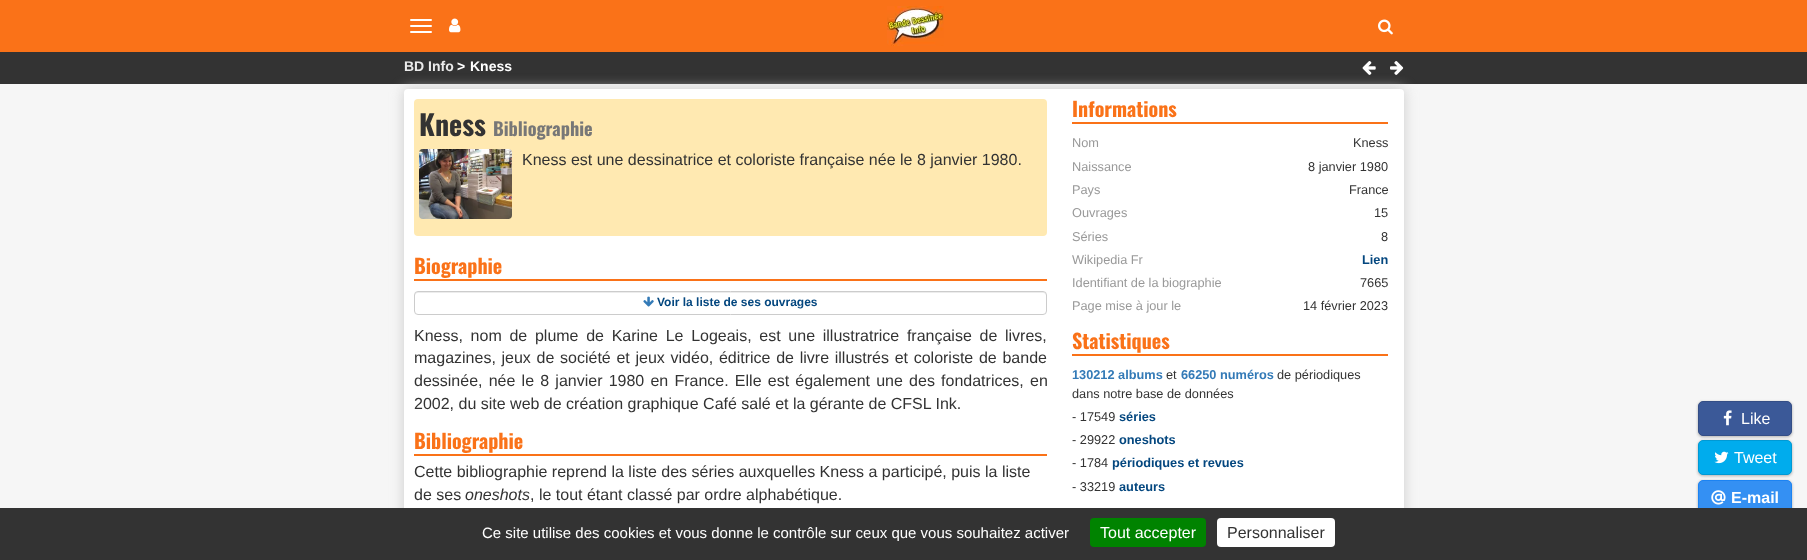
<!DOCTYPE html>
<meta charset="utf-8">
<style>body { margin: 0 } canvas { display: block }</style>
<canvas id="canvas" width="1807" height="560"></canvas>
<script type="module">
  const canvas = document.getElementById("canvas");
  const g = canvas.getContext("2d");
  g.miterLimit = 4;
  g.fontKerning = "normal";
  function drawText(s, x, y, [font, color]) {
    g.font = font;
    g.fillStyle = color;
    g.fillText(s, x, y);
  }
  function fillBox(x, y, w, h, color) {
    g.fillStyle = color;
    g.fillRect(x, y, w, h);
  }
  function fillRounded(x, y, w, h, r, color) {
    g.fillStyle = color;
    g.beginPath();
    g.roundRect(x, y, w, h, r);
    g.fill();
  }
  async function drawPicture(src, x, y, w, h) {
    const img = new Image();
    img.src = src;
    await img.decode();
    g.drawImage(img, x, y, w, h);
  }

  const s1 = ["bold 14px Liberation Sans", "#EBEBEB"];
  const s2 = ["bold 14px Liberation Sans", "#FFFFFF"];
  const s3 = ["bold 28px Oswald", "#333333"];
  const s4 = ["bold 18.25px Oswald", "#777777"];
  const s5 = ["16px Liberation Sans", "#333333"];
  const s6 = ["bold 20px Oswald", "#FA7218"];
  const s7 = ["bold 12px Liberation Sans", "#04477F"];
  const s8 = ["italic 16px Liberation Sans", "#333333"];
  const s9 = ["12.75px Liberation Sans", "#999999"];
  const s10 = ["12.75px Liberation Sans", "#333333"];
  const s11 = ["bold 12.75px Liberation Sans", "#04477F"];
  const s12 = ["bold 12.75px Liberation Sans", "#337AB7"];
  const s13 = ["16px Liberation Sans", "#FFFFFF"];
  const s14 = ["bold 16px Liberation Sans", "#FFFFFF"];
  const s15 = ["15px Liberation Sans", "#FFFFFF"];

  fillBox(0, 0, 1807, 560, "#F6F6F6");
  fillBox(0, 0, 1807, 52, "#FA7218");
  fillRounded(410, 19, 22, 2, 1, "#FFFFFF");
  fillRounded(410, 25, 22, 2, 1, "#FFFFFF");
  fillRounded(410, 31, 22, 2, 1, "#FFFFFF");
  await drawPicture("pic1.png", 449, 18, 12, 15);
  await drawPicture("pic2.png", 887, 6, 57, 40);
  await drawPicture("pic3.png", 1378, 19, 15, 16);
  fillBox(0, 52, 1807, 32, "#333333");
  g.fillStyle = "#CCCCCC";
  g.filter = "blur(6.5px)";
  g.beginPath();
  g.roundRect(404, 89, 1000, 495, 4);
  g.fill();
  g.filter = "none";
  drawText("BD Info", 404, 71, s1);
  drawText(">", 457, 71, s2);
  drawText("Kness", 470, 71, s2);
  await drawPicture("pic4.png", 1362, 61, 14, 14);
  await drawPicture("pic5.png", 1390, 61, 14, 14);
  fillRounded(404, 89, 1000, 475, 4, "#FFFFFF");
  fillRounded(414, 99, 633, 137, 4, "#FFE9B1");
  drawText("Kness", 419, 136, s3);
  drawText("Bibliographie", 493, 136, s4);
  await drawPicture("pic6.png", 419, 149, 93, 70);
  drawText("Kness est une dessinatrice et coloriste française née le 8 janvier 1980.", 522, 165, s5);
  fillBox(414, 279, 633, 2, "#FA7218");
  drawText("Biographie", 414, 274, s6);
  g.fillStyle = "#ECECEC";
  g.beginPath();
  g.moveTo(418, 293);
  g.lineTo(1043, 293);
  g.bezierCurveTo(1045, 293, 1046, 294, 1046, 296);
  g.lineTo(1046, 295);
  g.bezierCurveTo(1046, 293, 1045, 292, 1043, 292);
  g.lineTo(418, 292);
  g.bezierCurveTo(416, 292, 415, 293, 415, 295);
  g.lineTo(415, 296);
  g.bezierCurveTo(415, 294, 416, 293, 418, 293);
  g.closePath();
  g.fill();
  g.beginPath();
  g.roundRect(414.5, 291.5, 632, 23, 3.5);
  g.strokeStyle = "#CCCCCC";
  g.stroke();
  await drawPicture("pic7.png", 643, 296, 11, 11);
  drawText("Voir la liste de ses ouvrages", 657, 306, s7);
  g.wordSpacing = "3.25px";
  drawText("Kness, nom de plume de Karine Le Logeais, est une illustratrice française de livres,", 414, 341, s5);
  g.wordSpacing = "1.25px";
  drawText("magazines, jeux de société et jeux vidéo, éditrice de livre illustrés et coloriste de bande", 414, 363, s5);
  g.wordSpacing = "1.75px";
  drawText("dessinée, née le 8 janvier 1980 en France. Elle est également une des fondatrices, en", 414, 386, s5);
  g.wordSpacing = "0px";
  drawText("2002, du site web de création graphique Café salé et la gérante de CFSL Ink.", 414, 409, s5);
  fillBox(414, 454, 633, 2, "#FA7218");
  drawText("Bibliographie", 414, 449, s6);
  drawText("Cette bibliographie reprend la liste des séries auxquelles Kness a participé, puis la liste", 414, 477, s5);
  drawText("de ses", 414, 500, s5);
  drawText("oneshots", 465, 500, s8);
  drawText(", le tout étant classé par ordre alphabétique.", 530, 500, s5);
  fillBox(1072, 122, 316, 2, "#FA7218");
  drawText("Informations", 1072, 117, s6);
  drawText("Nom", 1072, 147, s9);
  drawText("Kness", 1353, 147, s10);
  drawText("Naissance", 1072, 171, s9);
  drawText("8 janvier 1980", 1308, 171, s10);
  drawText("Pays", 1072, 194, s9);
  drawText("France", 1349, 194, s10);
  drawText("Ouvrages", 1072, 217, s9);
  drawText("15", 1374, 217, s10);
  drawText("Séries", 1072, 241, s9);
  drawText("8", 1381, 241, s10);
  drawText("Wikipedia Fr", 1072, 264, s9);
  drawText("Lien", 1362, 264, s11);
  drawText("Identifiant de la biographie", 1072, 287, s9);
  drawText("7665", 1360, 287, s10);
  drawText("Page mise à jour le", 1072, 310, s9);
  drawText("14 février 2023", 1303, 310, s10);
  fillBox(1072, 354, 316, 2, "#FA7218");
  drawText("Statistiques", 1072, 349, s6);
  drawText("130212 albums", 1072, 379, s12);
  drawText("et", 1166, 379, s10);
  drawText("66250 numéros", 1181, 379, s12);
  drawText("de périodiques", 1277, 379, s10);
  drawText("dans notre base de données", 1072, 398, s10);
  drawText("- 17549", 1072, 421, s10);
  drawText("séries", 1119, 421, s11);
  drawText("- 29922", 1072, 444, s10);
  drawText("oneshots", 1119, 444, s11);
  drawText("- 1784", 1072, 467, s10);
  drawText("périodiques et revues", 1112, 467, s11);
  drawText("- 33219", 1072, 491, s10);
  drawText("auteurs", 1119, 491, s11);
  g.fillStyle = "rgba(0, 0, 0, 0.15)";
  g.filter = "blur(1.5px)";
  g.beginPath();
  g.roundRect(1698, 402, 94, 35, 5);
  g.fill();
  g.filter = "none";
  g.filter = "blur(1.5px)";
  g.beginPath();
  g.roundRect(1698, 402, 94, 35, 5);
  g.fill();
  g.filter = "none";
  g.fillStyle = "#3B5998";
  g.beginPath();
  g.roundRect(1698.5, 401.5, 93, 34, 4.5);
  g.fill();
  g.strokeStyle = "#344E86";
  g.stroke();
  await drawPicture("pic8.png", 1723, 410, 9, 16);
  drawText("Like", 1741, 424, s13);
  g.fillStyle = "rgba(0, 0, 0, 0.15)";
  g.filter = "blur(1.5px)";
  g.beginPath();
  g.roundRect(1698, 441, 94, 35, 5);
  g.fill();
  g.filter = "none";
  g.filter = "blur(1.5px)";
  g.beginPath();
  g.roundRect(1698, 441, 94, 35, 5);
  g.fill();
  g.filter = "none";
  g.fillStyle = "#00ACED";
  g.beginPath();
  g.roundRect(1698.5, 440.5, 93, 34, 4.5);
  g.fill();
  g.strokeStyle = "#0099D4";
  g.stroke();
  await drawPicture("pic9.png", 1714, 451, 15, 13);
  drawText("Tweet", 1734, 463, s13);
  g.fillStyle = "rgba(0, 0, 0, 0.15)";
  g.filter = "blur(1.5px)";
  g.beginPath();
  g.roundRect(1698, 481, 94, 35, 5);
  g.fill();
  g.filter = "none";
  g.filter = "blur(1.5px)";
  g.beginPath();
  g.roundRect(1698, 481, 94, 35, 5);
  g.fill();
  g.filter = "none";
  g.fillStyle = "#3490F3";
  g.beginPath();
  g.roundRect(1698.5, 480.5, 93, 34, 4.5);
  g.fill();
  g.strokeStyle = "#1C83F2";
  g.stroke();
  await drawPicture("pic10.png", 1711, 490, 15, 15);
  drawText("E-mail", 1731, 503, s14);
  fillBox(0, 508, 1807, 52, "#333333");
  drawText("Ce site utilise des cookies et vous donne le contrôle sur ceux que vous souhaitez activer", 482, 538, s15);
  fillRounded(1090, 518, 116, 29, 4, "#008300");
  drawText("Tout accepter", 1100, 538, s13);
  fillRounded(1217, 518, 118, 29, 4, "#FFFFFF");
  drawText("Personnaliser", 1227, 538, s5);
</script>
